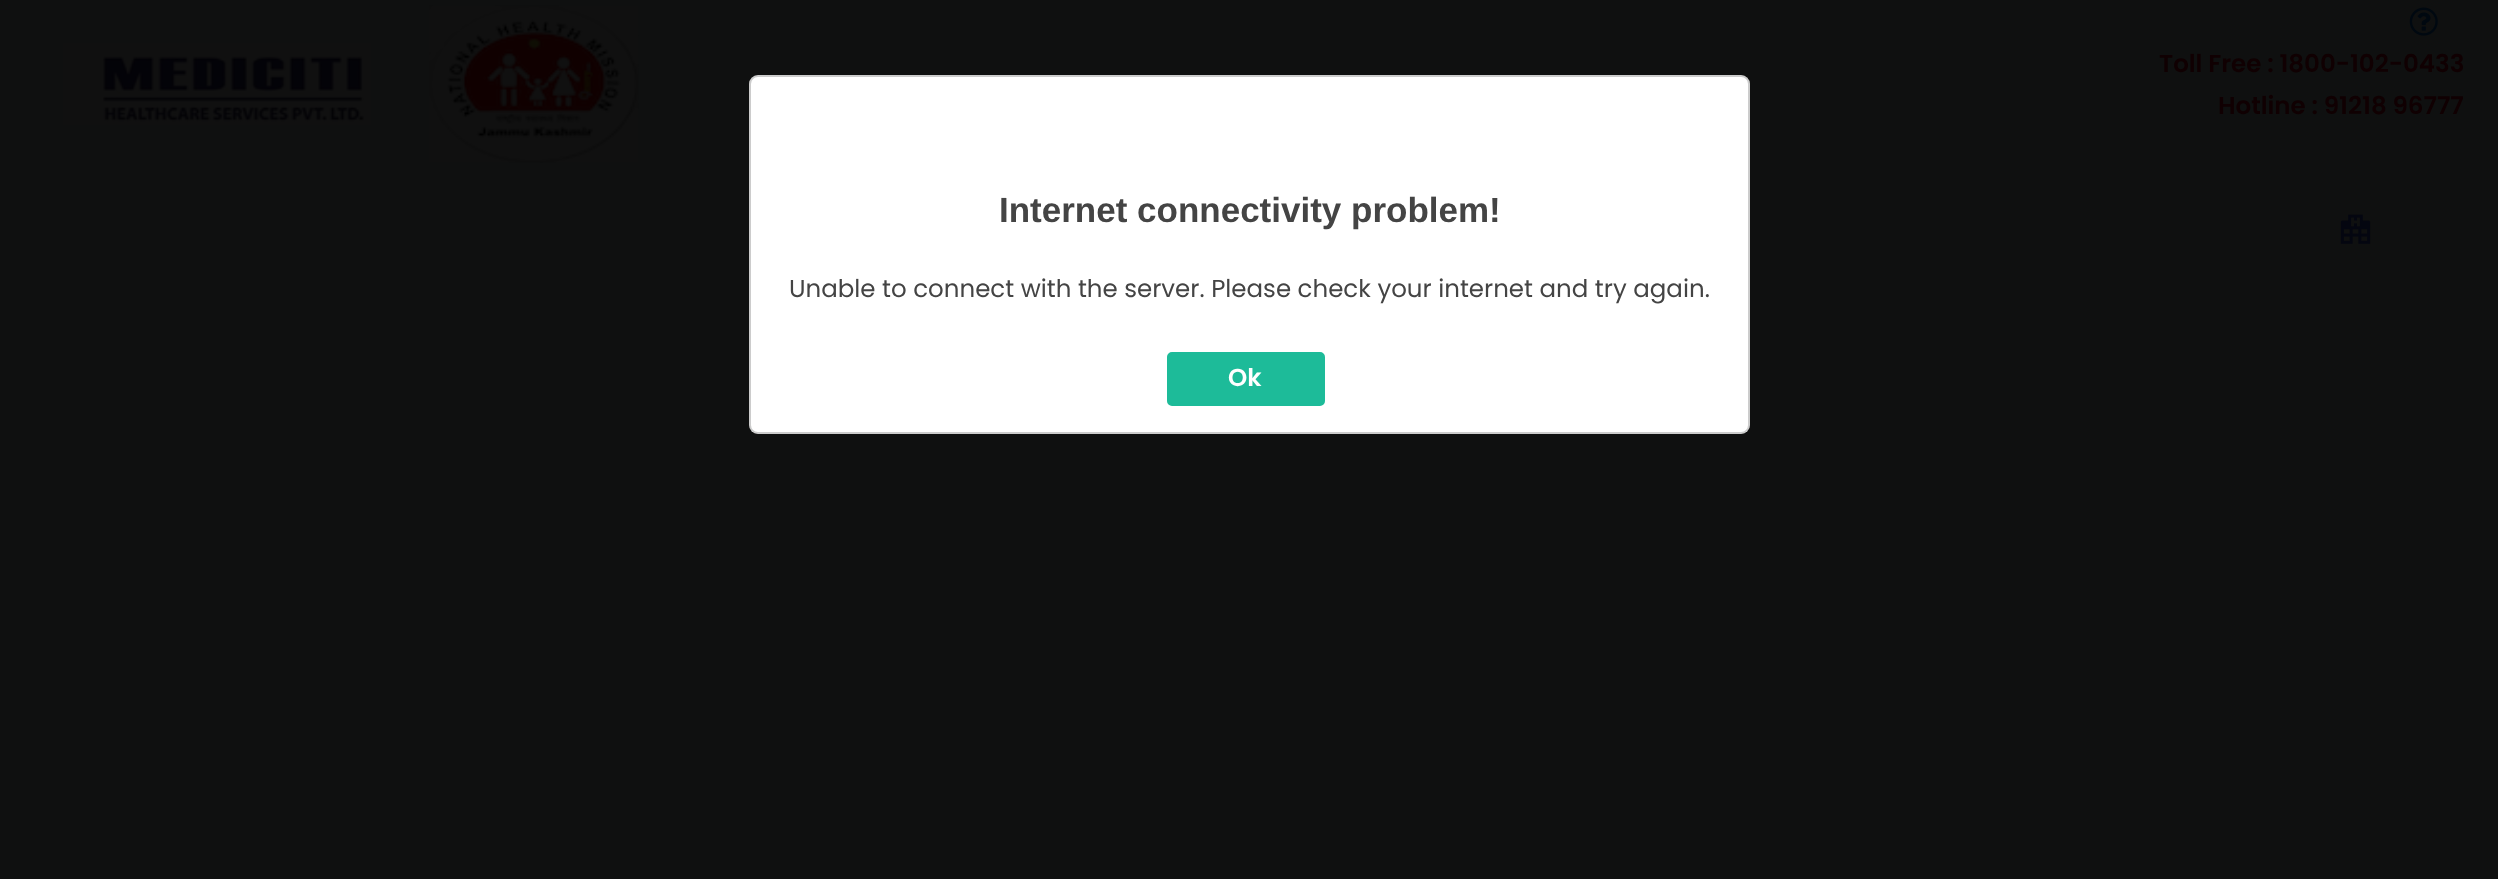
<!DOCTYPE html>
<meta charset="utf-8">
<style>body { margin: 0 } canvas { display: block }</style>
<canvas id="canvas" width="2498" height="879"></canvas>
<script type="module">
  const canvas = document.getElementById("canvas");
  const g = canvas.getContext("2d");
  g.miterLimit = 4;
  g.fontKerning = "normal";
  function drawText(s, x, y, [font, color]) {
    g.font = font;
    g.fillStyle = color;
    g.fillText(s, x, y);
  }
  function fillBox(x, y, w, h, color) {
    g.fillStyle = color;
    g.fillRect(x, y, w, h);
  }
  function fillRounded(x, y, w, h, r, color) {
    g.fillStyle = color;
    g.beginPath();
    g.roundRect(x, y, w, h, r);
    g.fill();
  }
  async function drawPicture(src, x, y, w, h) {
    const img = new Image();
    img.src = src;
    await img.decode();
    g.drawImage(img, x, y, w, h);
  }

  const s1 = ["600 24.5px Poppins", "#100002"];
  const s2 = ["bold 35px Liberation Sans", "#444444"];
  const s3 = ["24.5px Poppins", "#444444"];
  const s4 = ["600 24.5px Poppins", "#FFFFFF"];

  fillBox(0, 0, 2498, 879, "#0F1010");
  g.beginPath();
  g.roundRect(750, 76, 999, 357, 8);
  g.strokeStyle = "rgba(0, 0, 0, 0.2)";
  g.lineWidth = 2;
  g.stroke();
  await drawPicture("pic1.png", 63, 43, 308, 82);
  await drawPicture("pic2.png", 428, 5, 211, 158);
  await drawPicture("pic3.png", 2409, 7, 29, 29);
  drawText("Toll Free : 1800-102-0433", 2159, 72, s1);
  drawText("Hotline : 91218 96777", 2218, 114, s1);
  await drawPicture("pic4.png", 2340, 214, 31, 30);
  fillRounded(749, 75, 1001, 359, 9, "#FFFFFF");
  g.beginPath();
  g.roundRect(750, 76, 999, 357, 8);
  g.stroke();
  drawText("Internet connectivity problem!", 999, 222, s2);
  drawText("Unable to connect with the server. Please check your internet and try again.", 789, 297, s3);
  g.fillStyle = "#1DBB99";
  g.beginPath();
  g.roundRect(1168, 353, 156, 52, 4);
  g.fill();
  g.strokeStyle = "#1DBB99";
  g.stroke();
  drawText("Ok", 1228, 386, s4);
</script>
